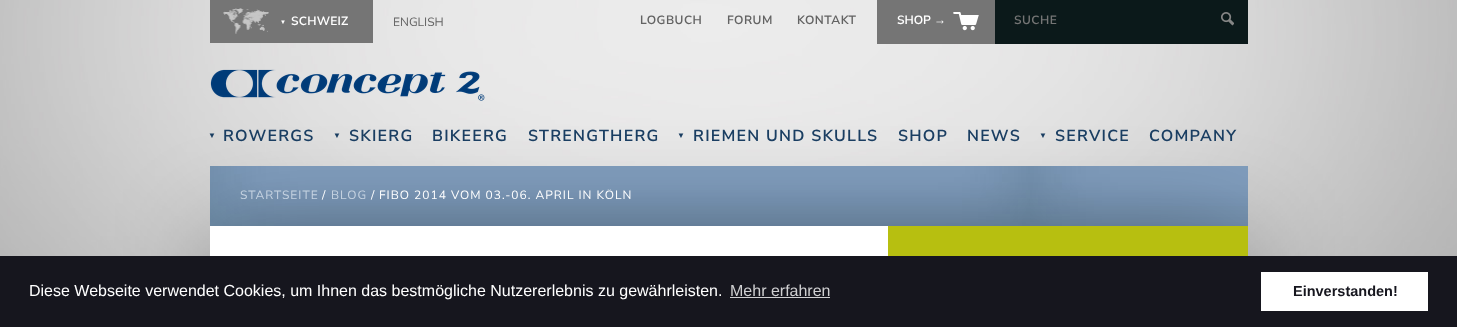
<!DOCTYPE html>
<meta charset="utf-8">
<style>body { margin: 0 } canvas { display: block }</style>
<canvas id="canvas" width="1457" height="327"></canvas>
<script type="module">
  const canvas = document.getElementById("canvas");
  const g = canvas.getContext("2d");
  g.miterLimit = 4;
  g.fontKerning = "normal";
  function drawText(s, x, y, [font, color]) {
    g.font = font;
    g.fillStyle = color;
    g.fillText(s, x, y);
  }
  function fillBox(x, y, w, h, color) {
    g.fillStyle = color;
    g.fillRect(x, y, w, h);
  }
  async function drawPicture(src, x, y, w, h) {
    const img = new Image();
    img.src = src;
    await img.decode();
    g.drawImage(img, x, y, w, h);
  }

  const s1 = ["bold 6px Liberation Serif", "#FFFFFF"];
  const s2 = ["600 12px Nunito Sans", "#FFFFFF"];
  const s3 = ["12px Nunito Sans", "#636363"];
  const s4 = ["600 12px Nunito Sans", "#636363"];
  const s5 = ["bold 12px Liberation Serif", "#FFFFFF"];
  const s6 = ["600 12px Nunito Sans", "#757575"];
  const s7 = ["bold 8px Liberation Serif", "#1A3E62"];
  const s8 = ["600 16px Nunito Sans", "#1A3E62"];
  const s9 = ["12px Nunito Sans", "#C7D4E2"];
  const s10 = ["12px Nunito Sans", "#FFFFFF"];
  const s11 = ["16px Liberation Sans", "#FFFFFF"];
  const s12 = ["16px Liberation Sans", "#D0D0D2"];
  const s13 = ["bold 14.5px Liberation Sans", "#16161E"];

  fillBox(0, 0, 1457, 327, "#FFFFFF");
  await drawPicture("pic1.png", 0, 0, 1457, 256);
  fillBox(210, 0, 163, 43, "#757575");
  await drawPicture("pic2.png", 223, 8, 46, 26);
  g.letterSpacing = "0.25px";
  drawText("▼", 280, 24, s1);
  drawText("SCHWEIZ", 291, 25, s2);
  g.letterSpacing = "0px";
  drawText("ENGLISH", 393, 26, s3);
  g.letterSpacing = "0.5px";
  drawText("LOGBUCH", 640, 24, s4);
  drawText("FORUM", 727, 24, s4);
  drawText("KONTAKT", 797, 24, s4);
  fillBox(877, 0, 118, 44, "#757575");
  g.letterSpacing = "0px";
  drawText("SHOP", 897, 24, s2);
  drawText("→", 934, 24, s5);
  await drawPicture("pic3.png", 953, 12, 26, 19);
  fillBox(995, 0, 253, 44, "#0B191A");
  g.letterSpacing = "0.5px";
  drawText("SUCHE", 1014, 24, s6);
  await drawPicture("pic4.png", 1221, 12, 13, 14);
  await drawPicture("pic6.png", 210, 166, 1038, 60);
  g.fillStyle = "rgba(0, 0, 0, 0.3)";
  g.filter = "blur(50px)";
  g.beginPath();
  g.rect(210, 236, 1038, 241);
  g.fill();
  g.filter = "none";
  await drawPicture("pic5.png", 210, 69, 275, 32);
  fillBox(210, 226, 678, 30, "#FFFFFF");
  fillBox(888, 226, 360, 30, "#B7BF10");
  g.letterSpacing = "1.25px";
  drawText("▼", 208, 138, s7);
  drawText("ROWERGS", 223, 141, s8);
  drawText("▼", 333, 138, s7);
  drawText("SKIERG", 349, 141, s8);
  drawText("BIKEERG", 432, 141, s8);
  drawText("STRENGTHERG", 528, 141, s8);
  drawText("▼", 677, 138, s7);
  drawText("RIEMEN UND SKULLS", 693, 141, s8);
  drawText("SHOP", 898, 141, s8);
  drawText("NEWS", 967, 141, s8);
  drawText("▼", 1039, 138, s7);
  drawText("SERVICE", 1055, 141, s8);
  drawText("COMPANY", 1149, 141, s8);
  g.letterSpacing = "1px";
  drawText("STARTSEITE", 240, 199, s9);
  drawText("/", 322, 199, s10);
  drawText("BLOG", 331, 199, s9);
  drawText("/", 371, 199, s10);
  g.save();
  g.beginPath();
  g.rect(240, 189, 750, 14);
  g.clip();
  drawText("FIBO 2014 VOM 03.-06. APRIL IN KÖLN", 379, 199, s10);
  g.restore();
  fillBox(0, 256, 1457, 71, "#16161E");
  g.letterSpacing = "0px";
  drawText("Diese Webseite verwendet Cookies, um Ihnen das bestmögliche Nutzererlebnis zu gewährleisten.", 29, 296, s11);
  drawText("Mehr erfahren", 730, 296, s12);
  fillBox(730, 297, 100, 1, "#D0D0D2");
  fillBox(1261, 272, 167, 39, "#FFFFFF");
  drawText("Einverstanden!", 1293, 296, s13);
</script>
